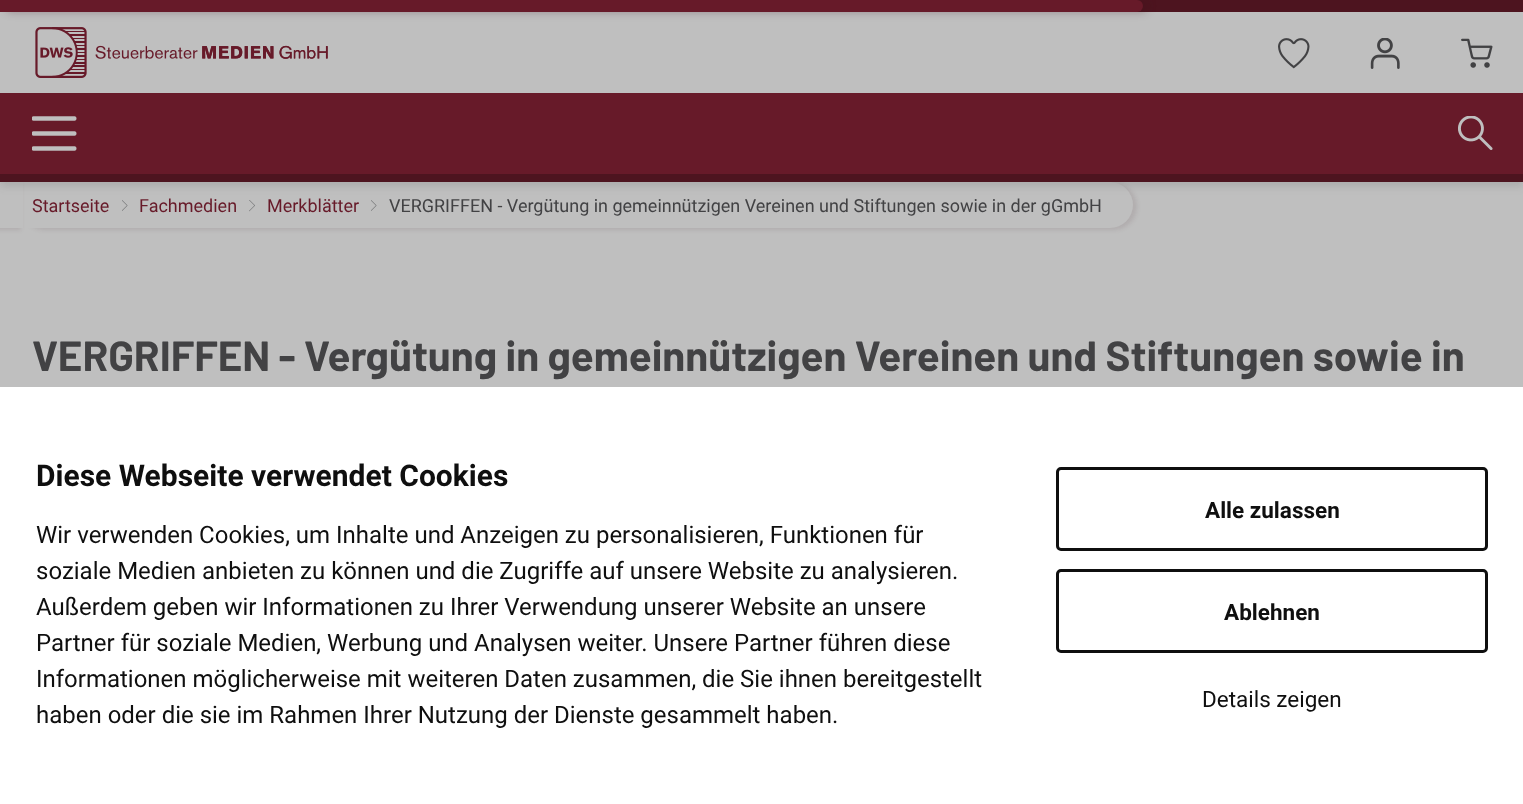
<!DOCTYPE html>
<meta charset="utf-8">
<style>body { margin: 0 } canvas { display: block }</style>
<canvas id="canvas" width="1523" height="804"></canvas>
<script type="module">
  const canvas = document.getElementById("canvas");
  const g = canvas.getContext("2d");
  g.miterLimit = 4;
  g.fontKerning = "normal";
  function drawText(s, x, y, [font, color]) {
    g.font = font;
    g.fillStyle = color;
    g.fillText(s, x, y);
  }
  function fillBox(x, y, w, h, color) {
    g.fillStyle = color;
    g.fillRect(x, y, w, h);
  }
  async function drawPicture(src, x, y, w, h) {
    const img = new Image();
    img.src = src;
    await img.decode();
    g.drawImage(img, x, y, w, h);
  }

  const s1 = ["18px Roboto", "#671A29"];
  const s2 = ["18px Roboto", "#424244"];
  const s3 = ["bold 42px Barlow", "#424244"];
  const s4 = ["bold 30px Roboto", "#0F0F0F"];
  const s5 = ["24px Roboto", "#0F0F0F"];
  const s6 = ["bold 22.5px Roboto", "#0F0F0F"];
  const s7 = ["22.5px Roboto", "#0F0F0F"];

  fillBox(0, 0, 1523, 804, "#BFBFBF");
  g.fillStyle = "rgba(62, 16, 25, 0.1)";
  g.filter = "blur(2px)";
  g.beginPath();
  g.roundRect(21, 183, 1116, 47, 23.5);
  g.fill();
  g.filter = "none";
  g.fillStyle = "#BFBFBF";
  g.beginPath();
  g.roundRect(17, 182, 1116, 46, [0, 23, 23, 0]);
  g.fill();
  g.fillStyle = "rgba(62, 16, 25, 0.1)";
  g.filter = "blur(2px)";
  g.beginPath();
  g.rect(-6, 183, 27, 47);
  g.fill();
  g.filter = "none";
  fillBox(0, 182, 23, 46, "#BFBFBF");
  await drawPicture("pic7.png", 122, 200, 6, 11);
  await drawPicture("pic8.png", 249, 200, 6, 12);
  await drawPicture("pic7.png", 371, 200, 6, 11);
  g.fillStyle = "rgba(62, 62, 62, 0.16)";
  g.filter = "blur(4.5px)";
  g.beginPath();
  g.rect(0, 5, 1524, 181);
  g.fill();
  g.filter = "none";
  fillBox(0, 12, 1523, 81, "#BFBFBF");
  fillBox(1137, 0, 386, 12, "#4D141F");
  g.fillStyle = "rgba(62, 16, 25, 0.3)";
  g.filter = "blur(4.5px)";
  g.beginPath();
  g.roundRect(5, 0, 1143, 12, 6);
  g.fill();
  g.filter = "none";
  g.fillStyle = "#671A29";
  g.beginPath();
  g.roundRect(0, 0, 1143, 12, [0, 6, 6, 0]);
  g.fill();
  await drawPicture("pic1.png", 35, 27, 293, 51);
  await drawPicture("pic2.png", 1278, 38, 32, 31);
  await drawPicture("pic3.png", 1370, 38, 30, 31);
  await drawPicture("pic4.png", 1461, 38, 32, 30);
  fillBox(0, 93, 1523, 81, "#671A29");
  await drawPicture("pic5.png", 32, 116, 45, 35);
  await drawPicture("pic6.png", 1458, 116, 35, 34);
  fillBox(0, 174, 1523, 8, "#4D141F");
  drawText("Startseite", 32, 212, s1);
  drawText("Fachmedien", 139, 212, s1);
  drawText("Merkblätter", 267, 212, s1);
  drawText("VERGRIFFEN - Vergütung in gemeinnützigen Vereinen und Stiftungen sowie in der gGmbH", 389, 212, s2);
  drawText("VERGRIFFEN - Vergütung in gemeinnützigen Vereinen und Stiftungen sowie in", 32, 371, s3);
  fillBox(0, 387, 1523, 417, "#FFFFFF");
  drawText("Diese Webseite verwendet Cookies", 36, 486, s4);
  drawText("Wir verwenden Cookies, um Inhalte und Anzeigen zu personalisieren, Funktionen für", 36, 543, s5);
  drawText("soziale Medien anbieten zu können und die Zugriffe auf unsere Website zu analysieren.", 36, 579, s5);
  drawText("Außerdem geben wir Informationen zu Ihrer Verwendung unserer Website an unsere", 36, 615, s5);
  drawText("Partner für soziale Medien, Werbung und Analysen weiter. Unsere Partner führen diese", 36, 651, s5);
  drawText("Informationen möglicherweise mit weiteren Daten zusammen, die Sie ihnen bereitgestellt", 36, 687, s5);
  drawText("haben oder die sie im Rahmen Ihrer Nutzung der Dienste gesammelt haben.", 36, 723, s5);
  g.beginPath();
  g.roundRect(1057.5, 468.5, 429, 81, 3.5);
  g.strokeStyle = "#0F0F0F";
  g.lineWidth = 3;
  g.stroke();
  drawText("Alle zulassen", 1205, 518, s6);
  g.beginPath();
  g.roundRect(1057.5, 570.5, 429, 81, 3.5);
  g.stroke();
  drawText("Ablehnen", 1224, 620, s6);
  drawText("Details zeigen", 1202, 707, s7);
</script>
